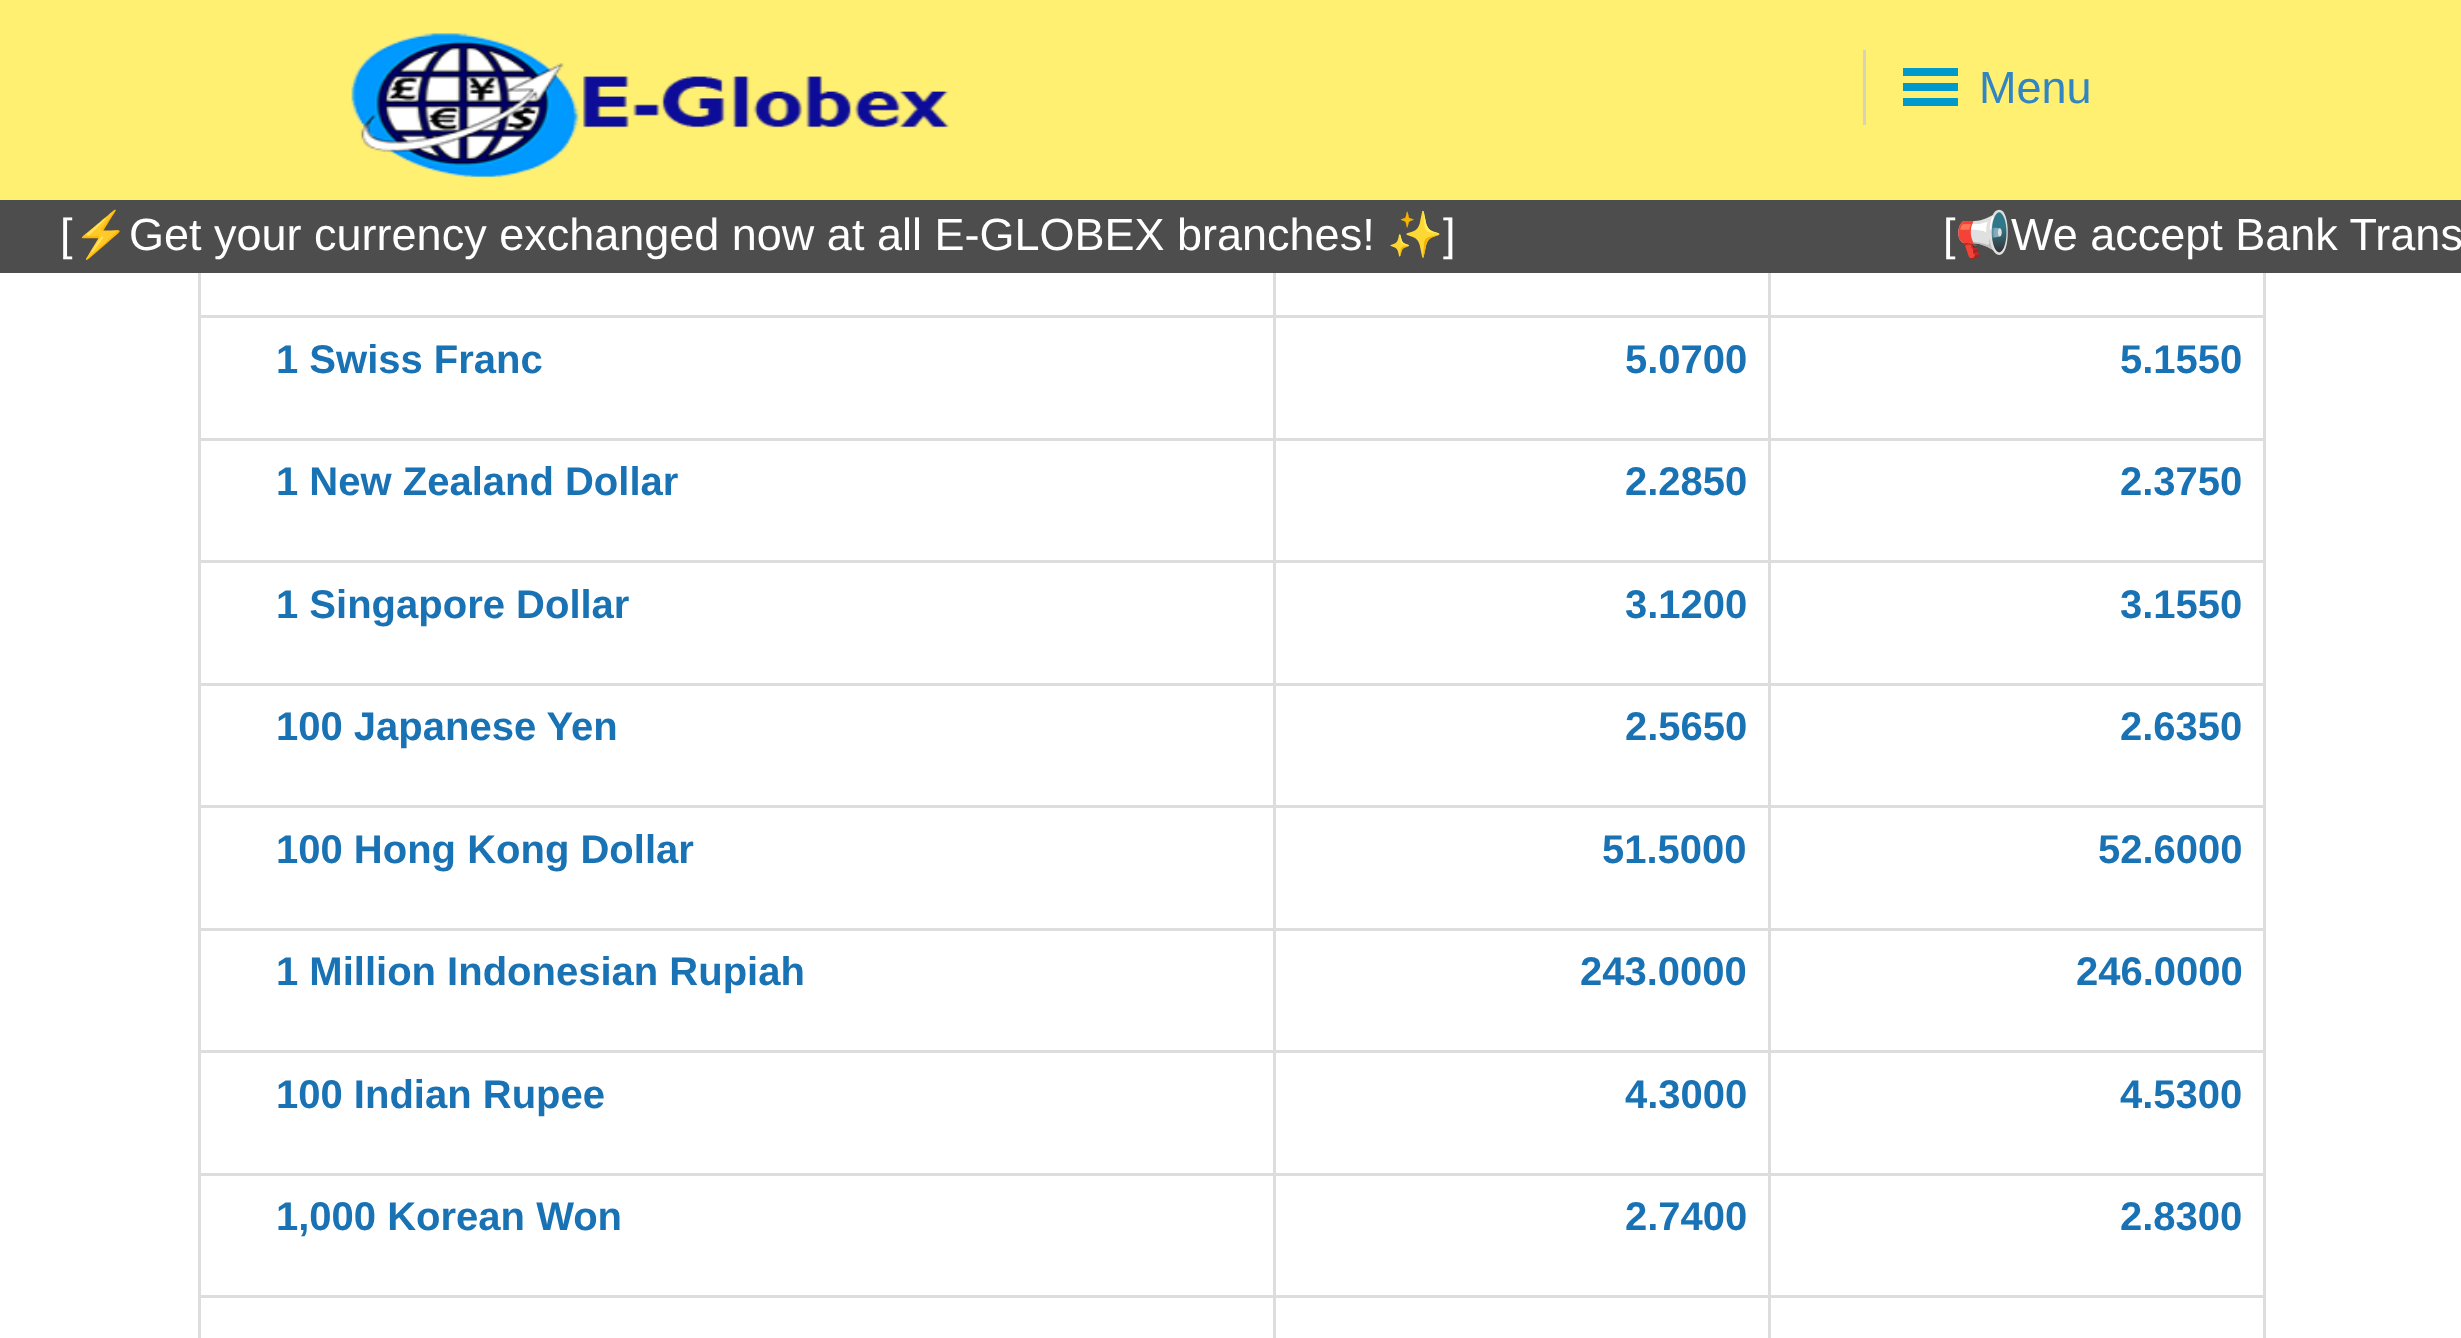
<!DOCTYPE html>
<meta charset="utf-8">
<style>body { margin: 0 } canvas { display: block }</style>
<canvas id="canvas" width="2461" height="1338"></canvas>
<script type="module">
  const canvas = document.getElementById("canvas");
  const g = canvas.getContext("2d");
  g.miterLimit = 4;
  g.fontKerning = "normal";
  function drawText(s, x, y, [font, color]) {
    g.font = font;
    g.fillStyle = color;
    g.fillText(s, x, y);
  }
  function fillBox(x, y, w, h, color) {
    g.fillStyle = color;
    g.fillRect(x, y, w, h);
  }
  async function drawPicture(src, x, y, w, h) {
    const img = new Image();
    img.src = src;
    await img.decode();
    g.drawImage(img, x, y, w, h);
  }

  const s1 = ["45px Arimo", "#3285C3"];
  const s2 = ["45px Arimo", "#FFFFFF"];
  const s3 = ["45px Noto Color Emoji", "#FFFFFF"];
  const s4 = ["bold 40px Arimo", "#1972B3"];

  fillBox(0, 0, 2461, 1338, "#FFFFFF");
  fillBox(0, 0, 2461, 200, "#FFF072");
  await drawPicture("pic1.png", 351, 33, 598, 145);
  fillBox(1863, 50, 3, 75, "#D6D3BA");
  fillBox(1903, 68, 55, 8, "#0099CC");
  drawText("Menu", 1979, 103, s1);
  fillBox(1903, 83, 55, 8, "#0099CC");
  fillBox(1903, 98, 55, 8, "#0099CC");
  fillBox(0, 200, 2461, 73, "#4D4D4D");
  drawText("[", 60, 250, s2);
  drawText("⚡", 73, 250, s3);
  drawText("Get your currency exchanged now at all E-GLOBEX branches!", 129, 250, s2);
  drawText("✨", 1387, 250, s3);
  drawText("]", 1443, 250, s2);
  drawText("[", 1943, 250, s2);
  drawText("📢", 1955, 250, s3);
  drawText("We accept Bank Trans", 2011, 250, s2);
  fillBox(1273, 1295, 3, 43, "#DDDDDD");
  fillBox(198, 1295, 3, 43, "#DDDDDD");
  fillBox(1768, 1295, 3, 43, "#DDDDDD");
  fillBox(2263, 273, 3, 1065, "#DDDDDD");
  fillBox(1768, 1295, 497, 3, "#DDDDDD");
  fillBox(1768, 1173, 3, 125, "#DDDDDD");
  fillBox(1768, 1173, 497, 3, "#DDDDDD");
  fillBox(1768, 1050, 3, 125, "#DDDDDD");
  fillBox(1768, 1050, 497, 3, "#DDDDDD");
  fillBox(1768, 928, 3, 125, "#DDDDDD");
  fillBox(1768, 928, 497, 3, "#DDDDDD");
  fillBox(1768, 805, 3, 125, "#DDDDDD");
  fillBox(1768, 805, 497, 3, "#DDDDDD");
  fillBox(1768, 683, 3, 125, "#DDDDDD");
  fillBox(1768, 683, 497, 3, "#DDDDDD");
  fillBox(1768, 560, 3, 125, "#DDDDDD");
  fillBox(1768, 560, 497, 3, "#DDDDDD");
  fillBox(1768, 438, 3, 125, "#DDDDDD");
  fillBox(1768, 438, 497, 3, "#DDDDDD");
  fillBox(1768, 315, 3, 125, "#DDDDDD");
  fillBox(1768, 315, 497, 3, "#DDDDDD");
  fillBox(1768, 273, 3, 45, "#DDDDDD");
  fillBox(1273, 1295, 497, 3, "#DDDDDD");
  fillBox(1273, 1173, 3, 125, "#DDDDDD");
  fillBox(1273, 1173, 497, 3, "#DDDDDD");
  fillBox(1273, 1050, 3, 125, "#DDDDDD");
  fillBox(1273, 1050, 497, 3, "#DDDDDD");
  fillBox(1273, 928, 3, 125, "#DDDDDD");
  fillBox(1273, 928, 497, 3, "#DDDDDD");
  fillBox(1273, 805, 3, 125, "#DDDDDD");
  fillBox(1273, 805, 497, 3, "#DDDDDD");
  fillBox(1273, 683, 3, 125, "#DDDDDD");
  fillBox(1273, 683, 497, 3, "#DDDDDD");
  fillBox(1273, 560, 3, 125, "#DDDDDD");
  fillBox(1273, 560, 497, 3, "#DDDDDD");
  fillBox(1273, 438, 3, 125, "#DDDDDD");
  fillBox(1273, 438, 497, 3, "#DDDDDD");
  fillBox(1273, 315, 3, 125, "#DDDDDD");
  fillBox(1273, 315, 497, 3, "#DDDDDD");
  fillBox(1273, 273, 3, 45, "#DDDDDD");
  fillBox(198, 1295, 1077, 3, "#DDDDDD");
  fillBox(198, 1173, 3, 125, "#DDDDDD");
  fillBox(198, 1173, 1077, 3, "#DDDDDD");
  fillBox(198, 1050, 3, 125, "#DDDDDD");
  fillBox(198, 1050, 1077, 3, "#DDDDDD");
  fillBox(198, 928, 3, 125, "#DDDDDD");
  fillBox(198, 928, 1077, 3, "#DDDDDD");
  fillBox(198, 805, 3, 125, "#DDDDDD");
  fillBox(198, 805, 1077, 3, "#DDDDDD");
  fillBox(198, 683, 3, 125, "#DDDDDD");
  fillBox(198, 683, 1077, 3, "#DDDDDD");
  fillBox(198, 560, 3, 125, "#DDDDDD");
  fillBox(198, 560, 1077, 3, "#DDDDDD");
  fillBox(198, 438, 3, 125, "#DDDDDD");
  fillBox(198, 438, 1077, 3, "#DDDDDD");
  fillBox(198, 315, 3, 125, "#DDDDDD");
  fillBox(198, 315, 1077, 3, "#DDDDDD");
  fillBox(198, 273, 3, 45, "#DDDDDD");
  drawText("1 Swiss Franc", 276, 373, s4);
  drawText("5.0700", 1625, 373, s4);
  drawText("5.1550", 2120, 373, s4);
  drawText("1 New Zealand Dollar", 276, 495, s4);
  drawText("2.2850", 1625, 495, s4);
  drawText("2.3750", 2120, 495, s4);
  drawText("1 Singapore Dollar", 276, 618, s4);
  drawText("3.1200", 1625, 618, s4);
  drawText("3.1550", 2120, 618, s4);
  drawText("100 Japanese Yen", 276, 740, s4);
  drawText("2.5650", 1625, 740, s4);
  drawText("2.6350", 2120, 740, s4);
  drawText("100 Hong Kong Dollar", 276, 863, s4);
  drawText("51.5000", 1602, 863, s4);
  drawText("52.6000", 2098, 863, s4);
  drawText("1 Million Indonesian Rupiah", 276, 985, s4);
  drawText("243.0000", 1580, 985, s4);
  drawText("246.0000", 2076, 985, s4);
  drawText("100 Indian Rupee", 276, 1108, s4);
  drawText("4.3000", 1625, 1108, s4);
  drawText("4.5300", 2120, 1108, s4);
  drawText("1,000 Korean Won", 276, 1230, s4);
  drawText("2.7400", 1625, 1230, s4);
  drawText("2.8300", 2120, 1230, s4);
</script>
